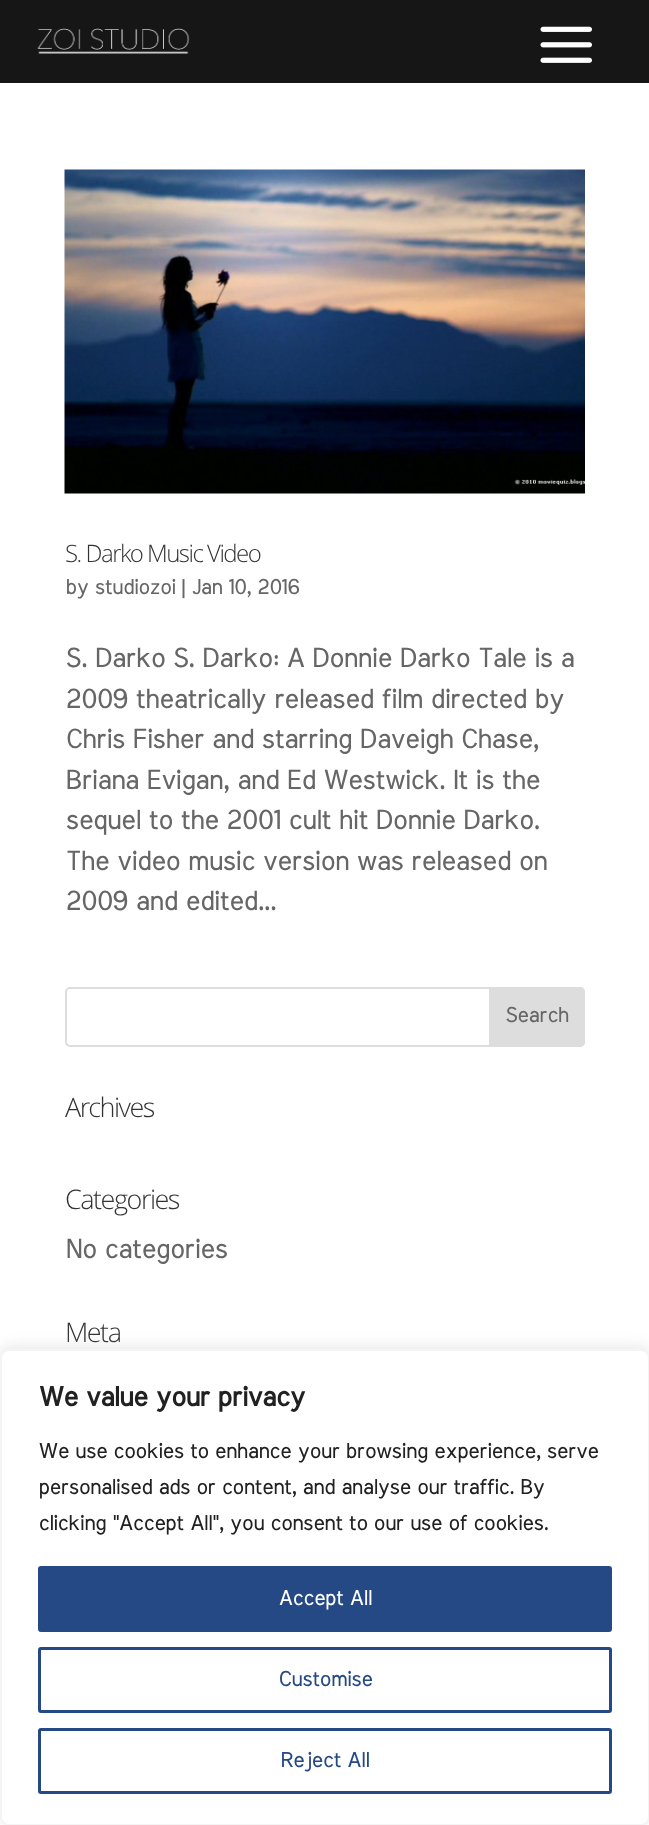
<!DOCTYPE html>
<meta charset="utf-8">
<style>body { margin: 0 } canvas { display: block }</style>
<canvas id="canvas" width="649" height="1825"></canvas>
<script type="module">
  const canvas = document.getElementById("canvas");
  const g = canvas.getContext("2d");
  g.miterLimit = 4;
  g.fontKerning = "normal";
  function drawText(s, x, y, [font, color]) {
    g.font = font;
    g.fillStyle = color;
    g.fillText(s, x, y);
  }
  function fillBox(x, y, w, h, color) {
    g.fillStyle = color;
    g.fillRect(x, y, w, h);
  }
  async function drawPicture(src, x, y, w, h) {
    const img = new Image();
    img.src = src;
    await img.decode();
    g.drawImage(img, x, y, w, h);
  }

  const s1 = ["300 24px Open Sans", "#333333"];
  const s2 = ["21px Meera Inimai", "#666666"];
  const s3 = ["27px Meera Inimai", "#666666"];
  const s4 = ["300 27px Open Sans", "#333333"];
  const s5 = ["bold 27px Meera Inimai", "#212121"];
  const s6 = ["21px Meera Inimai", "#212121"];
  const s7 = ["21px Meera Inimai", "#FFFFFF"];
  const s8 = ["21px Meera Inimai", "#244984"];

  fillBox(0, 0, 649, 1825, "#FFFFFF");
  fillBox(0, 0, 649, 83, "#161616");
  await drawPicture("pic1.png", 37, 28, 153, 26);
  await drawPicture("pic2.png", 540, 26, 52, 37);
  await drawPicture("pic3.png", 64, 169, 521, 325);
  g.letterSpacing = "-1.5px";
  drawText("S. Darko Music Video", 65, 562, s1);
  g.letterSpacing = "0px";
  drawText("by studiozoi | Jan 10, 2016", 65, 594, s2);
  drawText("S. Darko S. Darko: A Donnie Darko Tale is a", 65, 667, s3);
  drawText("2009 theatrically released film directed by", 65, 708, s3);
  drawText("Chris Fisher and starring Daveigh Chase,", 65, 748, s3);
  drawText("Briana Evigan, and Ed Westwick. It is the", 65, 789, s3);
  drawText("sequel to the 2001 cult hit Donnie Darko.", 65, 829, s3);
  drawText("The video music version was released on", 65, 870, s3);
  drawText("2009 and edited...", 65, 910, s3);
  g.beginPath();
  g.roundRect(66, 988, 518, 58, 4);
  g.strokeStyle = "#DDDDDD";
  g.lineWidth = 2;
  g.stroke();
  g.fillStyle = "#DDDDDD";
  g.beginPath();
  g.roundRect(490, 988, 94, 58, [0, 4, 4, 0]);
  g.fill();
  g.stroke();
  drawText("Search", 505, 1022, s2);
  g.letterSpacing = "-1.5px";
  drawText("Archives", 65, 1117, s4);
  drawText("Categories", 65, 1209, s4);
  g.letterSpacing = "0px";
  drawText("No categories", 65, 1258, s3);
  g.letterSpacing = "-1.5px";
  drawText("Meta", 65, 1342, s4);
  g.fillStyle = "rgba(172, 171, 171, 0.3)";
  g.filter = "blur(7.5px)";
  g.beginPath();
  g.roundRect(0, 1347, 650, 477, 9);
  g.fill();
  g.filter = "none";
  g.fillStyle = "#FFFFFF";
  g.beginPath();
  g.roundRect(1, 1350, 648, 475, 8);
  g.fill();
  g.strokeStyle = "#F4F4F4";
  g.stroke();
  g.letterSpacing = "0px";
  drawText("We value your privacy", 38, 1406, s5);
  drawText("We use cookies to enhance your browsing experience, serve", 38, 1458, s6);
  drawText("personalised ads or content, and analyse our traffic. By", 38, 1494, s6);
  drawText("clicking \"Accept All\", you consent to our use of cookies.", 38, 1530, s6);
  g.fillStyle = "#244984";
  g.beginPath();
  g.roundRect(39.5, 1567.5, 571, 63, 1.5);
  g.fill();
  g.strokeStyle = "#244984";
  g.lineWidth = 3;
  g.stroke();
  drawText("Accept All", 278, 1605, s7);
  g.beginPath();
  g.roundRect(39.5, 1648.5, 571, 63, 1.5);
  g.stroke();
  drawText("Customise", 278, 1686, s8);
  g.beginPath();
  g.roundRect(39.5, 1729.5, 571, 63, 1.5);
  g.stroke();
  drawText("Reject All", 280, 1767, s8);
</script>
